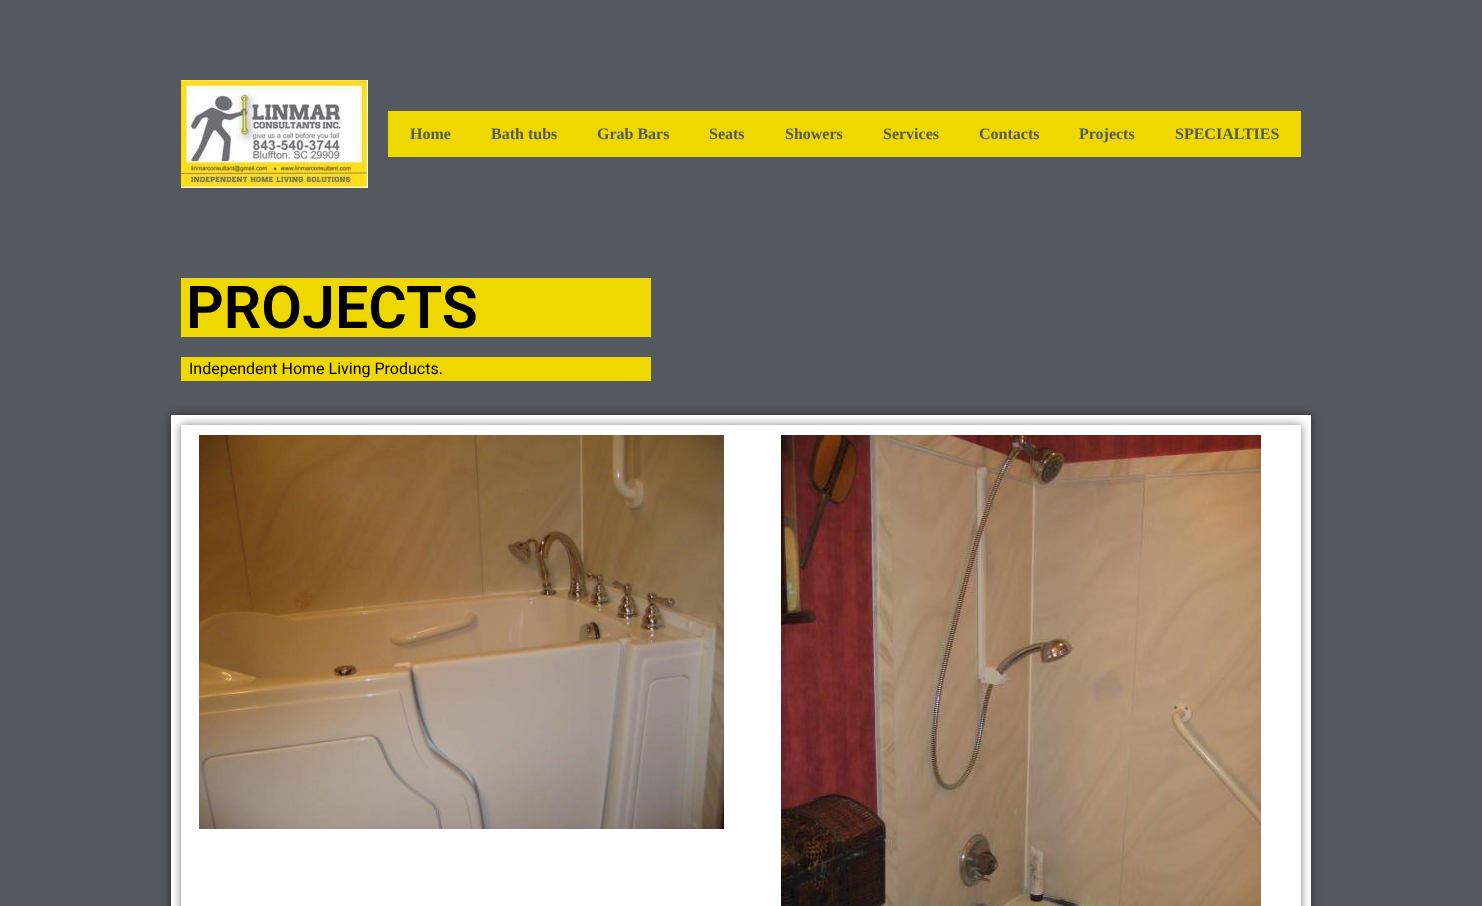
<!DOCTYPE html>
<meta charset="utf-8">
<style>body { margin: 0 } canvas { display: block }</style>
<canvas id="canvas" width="1482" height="906"></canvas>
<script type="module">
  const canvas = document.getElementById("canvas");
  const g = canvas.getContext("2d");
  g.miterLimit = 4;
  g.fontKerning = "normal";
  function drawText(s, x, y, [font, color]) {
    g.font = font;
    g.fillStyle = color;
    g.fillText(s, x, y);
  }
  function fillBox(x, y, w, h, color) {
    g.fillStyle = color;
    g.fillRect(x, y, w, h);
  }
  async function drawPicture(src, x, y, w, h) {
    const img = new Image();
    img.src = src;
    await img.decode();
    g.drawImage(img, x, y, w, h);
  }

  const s1 = ["bold 16px Liberation Serif", "#54595F"];
  const s2 = ["600 59px Roboto", "#000000"];
  const s3 = ["16px Roboto", "#000000"];

  fillBox(0, 0, 1482, 906, "#54595F");
  await drawPicture("pic1.png", 181, 80, 187, 108);
  fillBox(388, 111, 913, 46, "#EFD700");
  drawText("Home", 410, 139, s1);
  drawText("Bath tubs", 491, 139, s1);
  drawText("Grab Bars", 597, 139, s1);
  drawText("Seats", 709, 139, s1);
  drawText("Showers", 785, 139, s1);
  drawText("Services", 883, 139, s1);
  drawText("Contacts", 979, 139, s1);
  drawText("Projects", 1079, 139, s1);
  drawText("SPECIALTIES", 1175, 139, s1);
  fillBox(181, 278, 470, 59, "#EFD700");
  drawText("PROJECTS", 186, 328, s2);
  fillBox(181, 357, 470, 24, "#EFD700");
  drawText("Independent Home Living Products.", 189, 374, s3);
  g.fillStyle = "rgba(0, 0, 0, 0.5)";
  g.filter = "blur(5px)";
  g.beginPath();
  g.rect(171, 415, 1140, 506);
  g.fill();
  g.filter = "none";
  fillBox(171, 415, 1140, 491, "#FFFFFF");
  g.save();
  g.beginPath();
  g.moveTo(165, 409);
  g.lineTo(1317, 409);
  g.lineTo(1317, 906);
  g.lineTo(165, 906);
  g.closePath();
  g.moveTo(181, 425);
  g.lineTo(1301, 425);
  g.lineTo(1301, 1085);
  g.lineTo(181, 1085);
  g.closePath();
  g.clip("evenodd");
  g.fillStyle = "rgba(0, 0, 0, 0.5)";
  g.filter = "blur(5px)";
  g.beginPath();
  g.rect(181, 425, 1120, 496);
  g.fill();
  g.filter = "none";
  g.restore();
  await drawPicture("pic2.png", 199, 435, 525, 394);
  await drawPicture("pic3.png", 781, 435, 480, 471);
</script>
